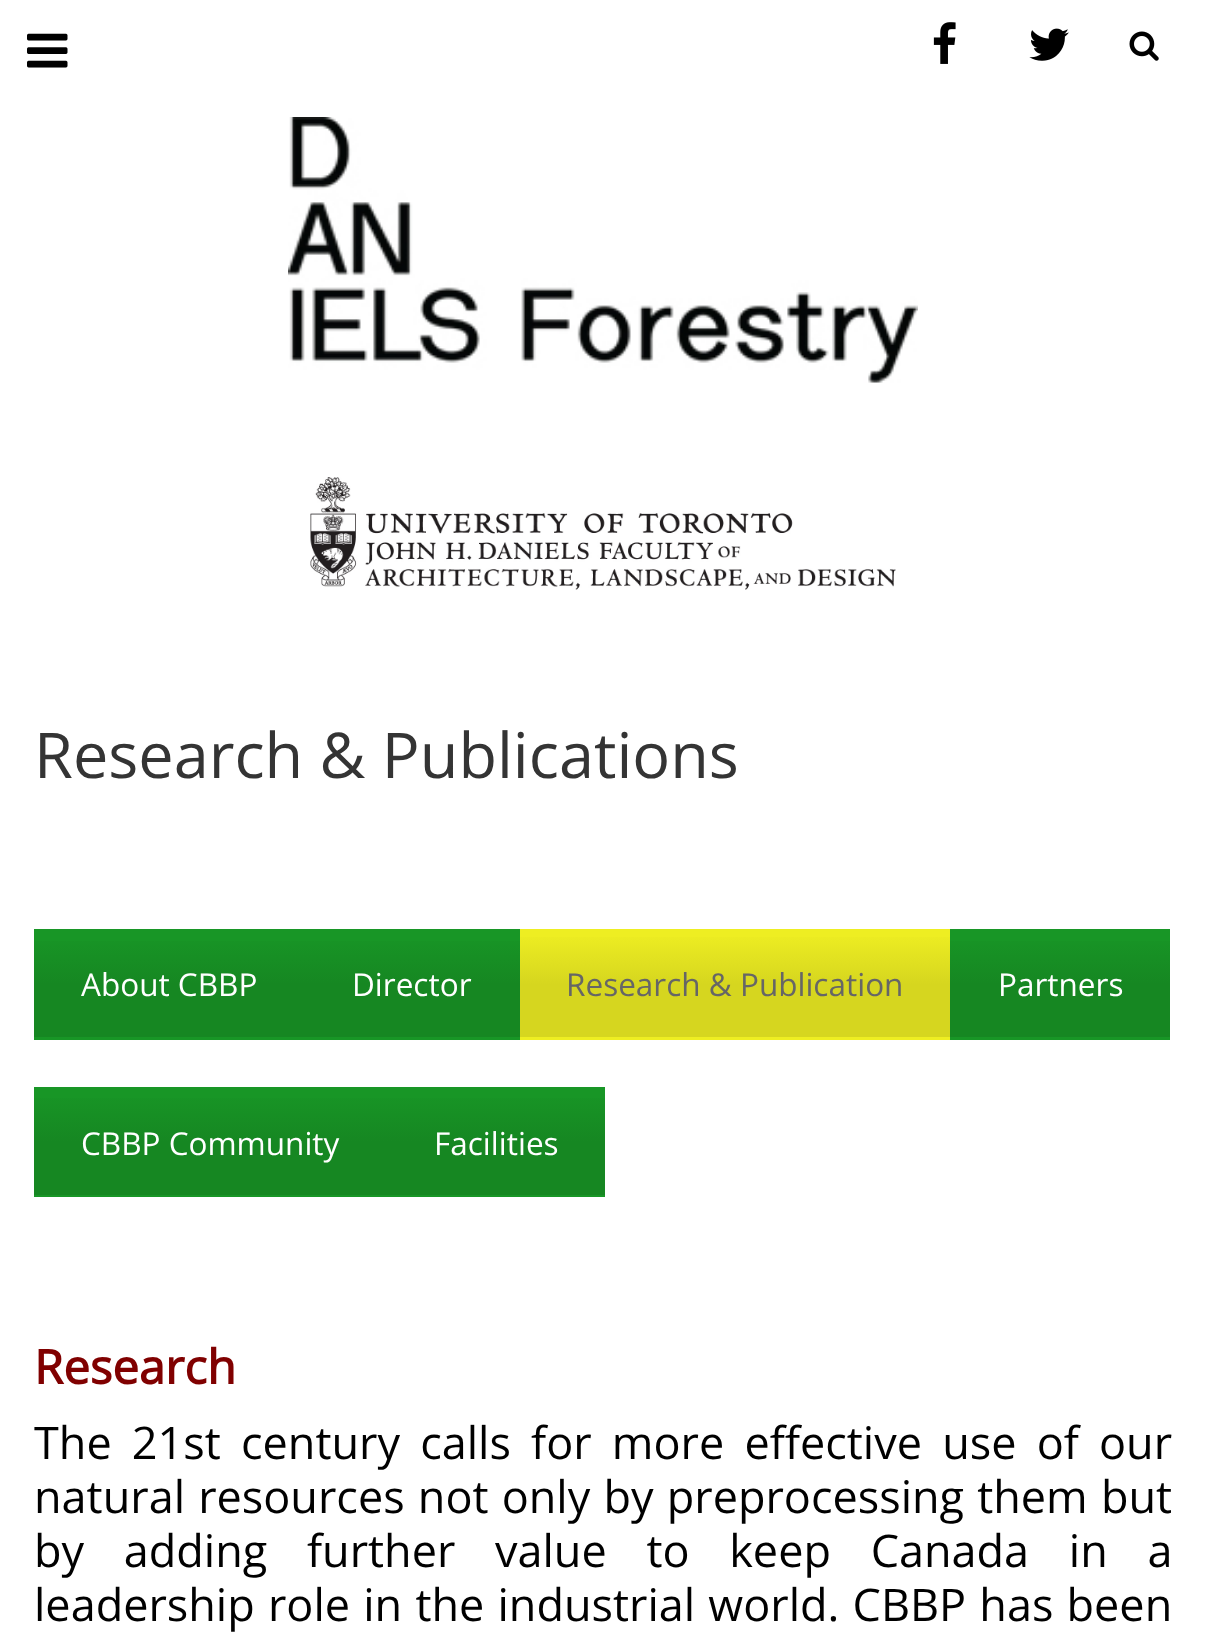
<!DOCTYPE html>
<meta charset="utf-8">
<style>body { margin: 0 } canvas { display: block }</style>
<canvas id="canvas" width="1205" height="1638"></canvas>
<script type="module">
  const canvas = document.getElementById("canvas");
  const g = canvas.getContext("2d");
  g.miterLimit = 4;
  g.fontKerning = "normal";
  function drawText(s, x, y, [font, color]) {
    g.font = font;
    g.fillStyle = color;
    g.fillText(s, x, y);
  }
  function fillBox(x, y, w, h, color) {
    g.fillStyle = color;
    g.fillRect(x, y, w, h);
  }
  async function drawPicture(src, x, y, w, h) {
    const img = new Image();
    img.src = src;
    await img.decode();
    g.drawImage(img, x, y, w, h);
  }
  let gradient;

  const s1 = ["63px Open Sans", "#343434"];
  const s2 = ["31.5px Open Sans", "#FFFFFF"];
  const s3 = ["31.5px Open Sans", "#666666"];
  const s4 = ["bold 47.25px Open Sans", "#800000"];
  const s5 = ["45px Open Sans", "#000000"];

  fillBox(0, 0, 1205, 1638, "#FFFFFF");
  await drawPicture("pic1.png", 27, 33, 41, 35);
  await drawPicture("pic2.png", 933, 22, 23, 42);
  await drawPicture("pic3.png", 1029, 28, 40, 33);
  await drawPicture("pic4.png", 1129, 31, 30, 30);
  await drawPicture("pic5.png", 288, 117, 630, 266);
  await drawPicture("pic6.png", 310, 477, 586, 113);
  drawText("Research & Publications", 34, 778, s1);
  fillBox(34, 929, 486, 111, "#189626");
  gradient = g.createLinearGradient(302, 932, 302, 1037);
  gradient.addColorStop(0, "#189626");
  gradient.addColorStop(0.5, "#168722");
  gradient.addColorStop(1, "#168722");
  g.fillStyle = gradient;
  g.fillRect(34, 941, 270, 96);
  drawText("About CBBP", 81, 996, s2);
  gradient = g.createLinearGradient(518, 932, 518, 1037);
  gradient.addColorStop(0, "#189626");
  gradient.addColorStop(0.5, "#168722");
  gradient.addColorStop(1, "#168722");
  g.fillStyle = gradient;
  g.fillRect(304, 941, 216, 96);
  drawText("Director", 352, 996, s2);
  fillBox(520, 929, 430, 111, "#EEEE22");
  gradient = g.createLinearGradient(947, 932, 947, 1037);
  gradient.addColorStop(0, "#EEEE22");
  gradient.addColorStop(0.5, "#D6D61F");
  gradient.addColorStop(1, "#D6D61F");
  g.fillStyle = gradient;
  g.fillRect(520, 937, 430, 100);
  drawText("Research & Publication", 566, 996, s3);
  fillBox(950, 929, 220, 111, "#189626");
  gradient = g.createLinearGradient(1168, 932, 1168, 1037);
  gradient.addColorStop(0, "#189626");
  gradient.addColorStop(0.5, "#168722");
  gradient.addColorStop(1, "#168722");
  g.fillStyle = gradient;
  g.fillRect(950, 941, 220, 96);
  drawText("Partners", 998, 996, s2);
  fillBox(34, 1087, 571, 110, "#189626");
  gradient = g.createLinearGradient(385, 1089, 385, 1195);
  gradient.addColorStop(0, "#189626");
  gradient.addColorStop(0.5, "#168722");
  gradient.addColorStop(1, "#168722");
  g.fillStyle = gradient;
  g.fillRect(34, 1098, 353, 97);
  drawText("CBBP Community", 81, 1155, s2);
  gradient = g.createLinearGradient(603, 1089, 603, 1195);
  gradient.addColorStop(0, "#189626");
  gradient.addColorStop(0.5, "#168722");
  gradient.addColorStop(1, "#168722");
  g.fillStyle = gradient;
  g.fillRect(387, 1098, 218, 97);
  drawText("Facilities", 434, 1155, s2);
  drawText("Research", 34, 1384, s4);
  g.wordSpacing = "8.5px";
  drawText("The 21st century calls for more effective use of our", 34, 1459, s5);
  g.wordSpacing = "1.5px";
  drawText("natural resources not only by preprocessing them but", 34, 1513, s5);
  g.wordSpacing = "28px";
  drawText("by adding further value to keep Canada in a", 34, 1567, s5);
  g.wordSpacing = "1.5px";
  drawText("leadership role in the industrial world. CBBP has been", 34, 1621, s5);
</script>
